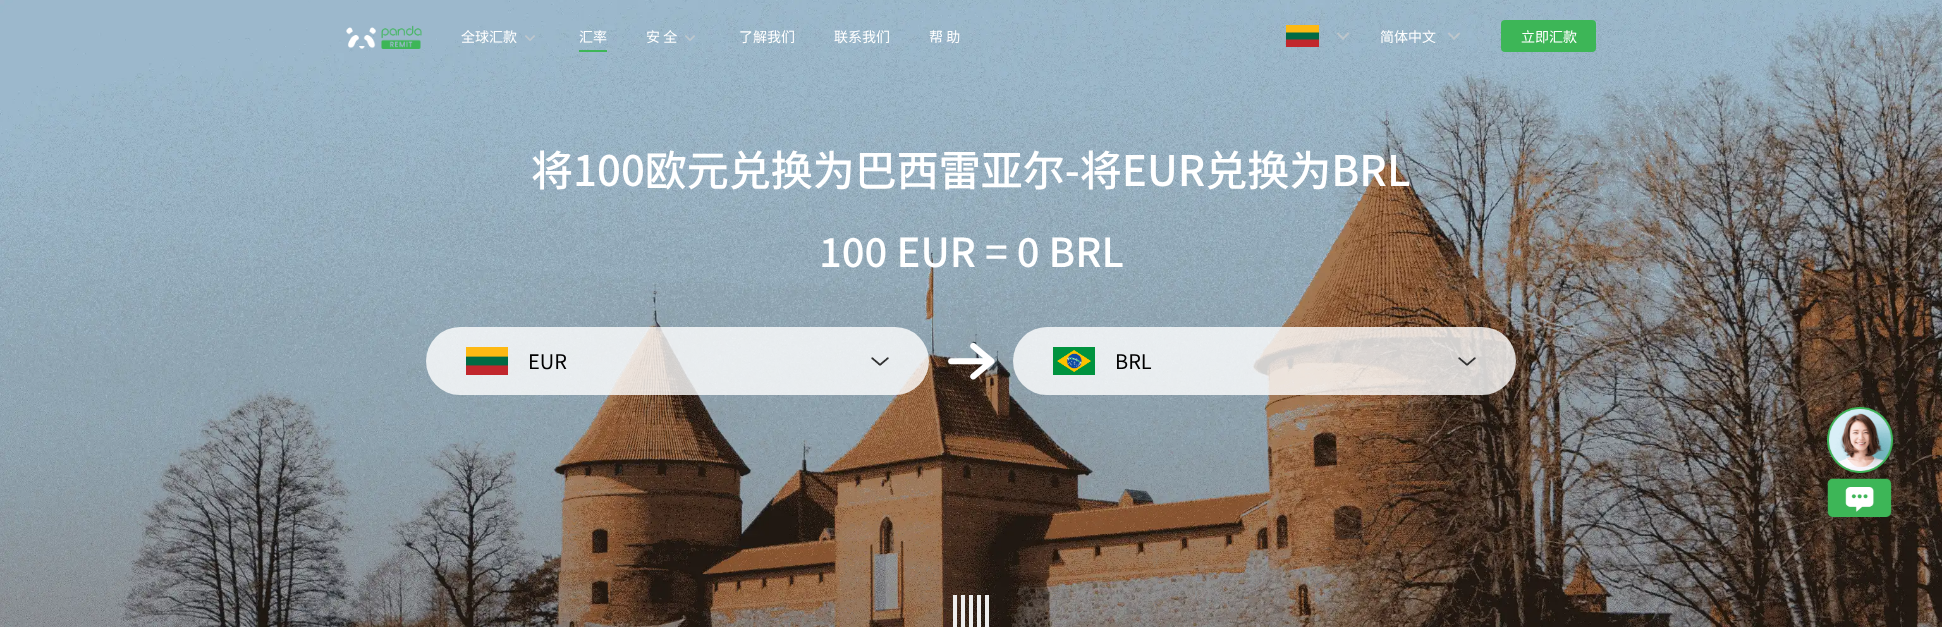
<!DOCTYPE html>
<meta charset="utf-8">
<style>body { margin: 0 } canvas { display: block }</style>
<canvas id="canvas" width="1942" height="627"></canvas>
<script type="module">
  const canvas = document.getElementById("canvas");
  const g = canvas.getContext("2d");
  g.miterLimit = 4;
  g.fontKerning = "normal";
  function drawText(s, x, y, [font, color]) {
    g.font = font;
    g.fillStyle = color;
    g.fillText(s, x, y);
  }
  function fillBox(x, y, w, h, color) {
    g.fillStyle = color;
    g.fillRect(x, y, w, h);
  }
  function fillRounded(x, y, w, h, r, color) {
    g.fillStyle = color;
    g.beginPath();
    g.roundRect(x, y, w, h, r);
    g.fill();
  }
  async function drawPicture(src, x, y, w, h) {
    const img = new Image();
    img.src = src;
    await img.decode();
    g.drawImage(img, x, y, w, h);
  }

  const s1 = ["14px Noto Sans CJK SC", "#FFFFFF"];
  const s2 = ["500 42px Noto Sans CJK SC", "#FFFFFF"];
  const s3 = ["500 40px Noto Sans CJK SC", "#FFFFFF"];
  const s4 = ["20px Noto Sans CJK SC", "#000000"];

  fillBox(0, 0, 1942, 627, "#FFFFFF");
  await drawPicture("pic1.png", 0, 0, 1942, 627);
  await drawPicture("pic2.png", 346, 25, 76, 24);
  drawText("全球汇款", 461, 42, s1);
  await drawPicture("pic3.png", 525, 35, 10, 6);
  drawText("汇率", 579, 42, s1);
  fillBox(579, 50, 28, 2, "#3DB657");
  drawText("安 全", 646, 42, s1);
  await drawPicture("pic4.png", 685, 35, 10, 6);
  drawText("了解我们", 739, 42, s1);
  drawText("联系我们", 834, 42, s1);
  drawText("帮 助", 929, 42, s1);
  await drawPicture("pic5.png", 1286, 25, 33, 22);
  await drawPicture("pic6.png", 1336, 32, 14, 8);
  drawText("简体中文", 1380, 42, s1);
  await drawPicture("pic7.png", 1447, 32, 14, 8);
  fillRounded(1501, 20, 95, 32, 4, "#3DB657");
  drawText("立即汇款", 1521, 42, s1);
  drawText("将100欧元兑换为巴西雷亚尔-将EUR兑换为BRL", 531, 186, s2);
  drawText("100 EUR = 0 BRL", 819, 267, s3);
  fillRounded(426, 327, 503, 68, 34, "rgba(255, 255, 255, 0.8)");
  await drawPicture("pic8.png", 466, 347, 42, 28);
  drawText("EUR", 528, 369, s4);
  await drawPicture("pic9.png", 871, 357, 18, 9);
  await drawPicture("pic10.png", 948, 343, 47, 37);
  fillRounded(1013, 327, 503, 68, 34, "rgba(255, 255, 255, 0.8)");
  await drawPicture("pic11.png", 1053, 347, 42, 28);
  drawText("BRL", 1115, 369, s4);
  await drawPicture("pic12.png", 1458, 357, 18, 9);
  fillBox(953, 595, 4, 32, "#EEEEEE");
  fillBox(961, 595, 4, 32, "#EEEEEE");
  fillBox(969, 595, 4, 32, "#EEEEEE");
  fillBox(977, 595, 4, 32, "#EEEEEE");
  fillBox(985, 595, 4, 32, "#EEEEEE");
  await drawPicture("pic13.png", 1827, 407, 67, 110);
</script>
